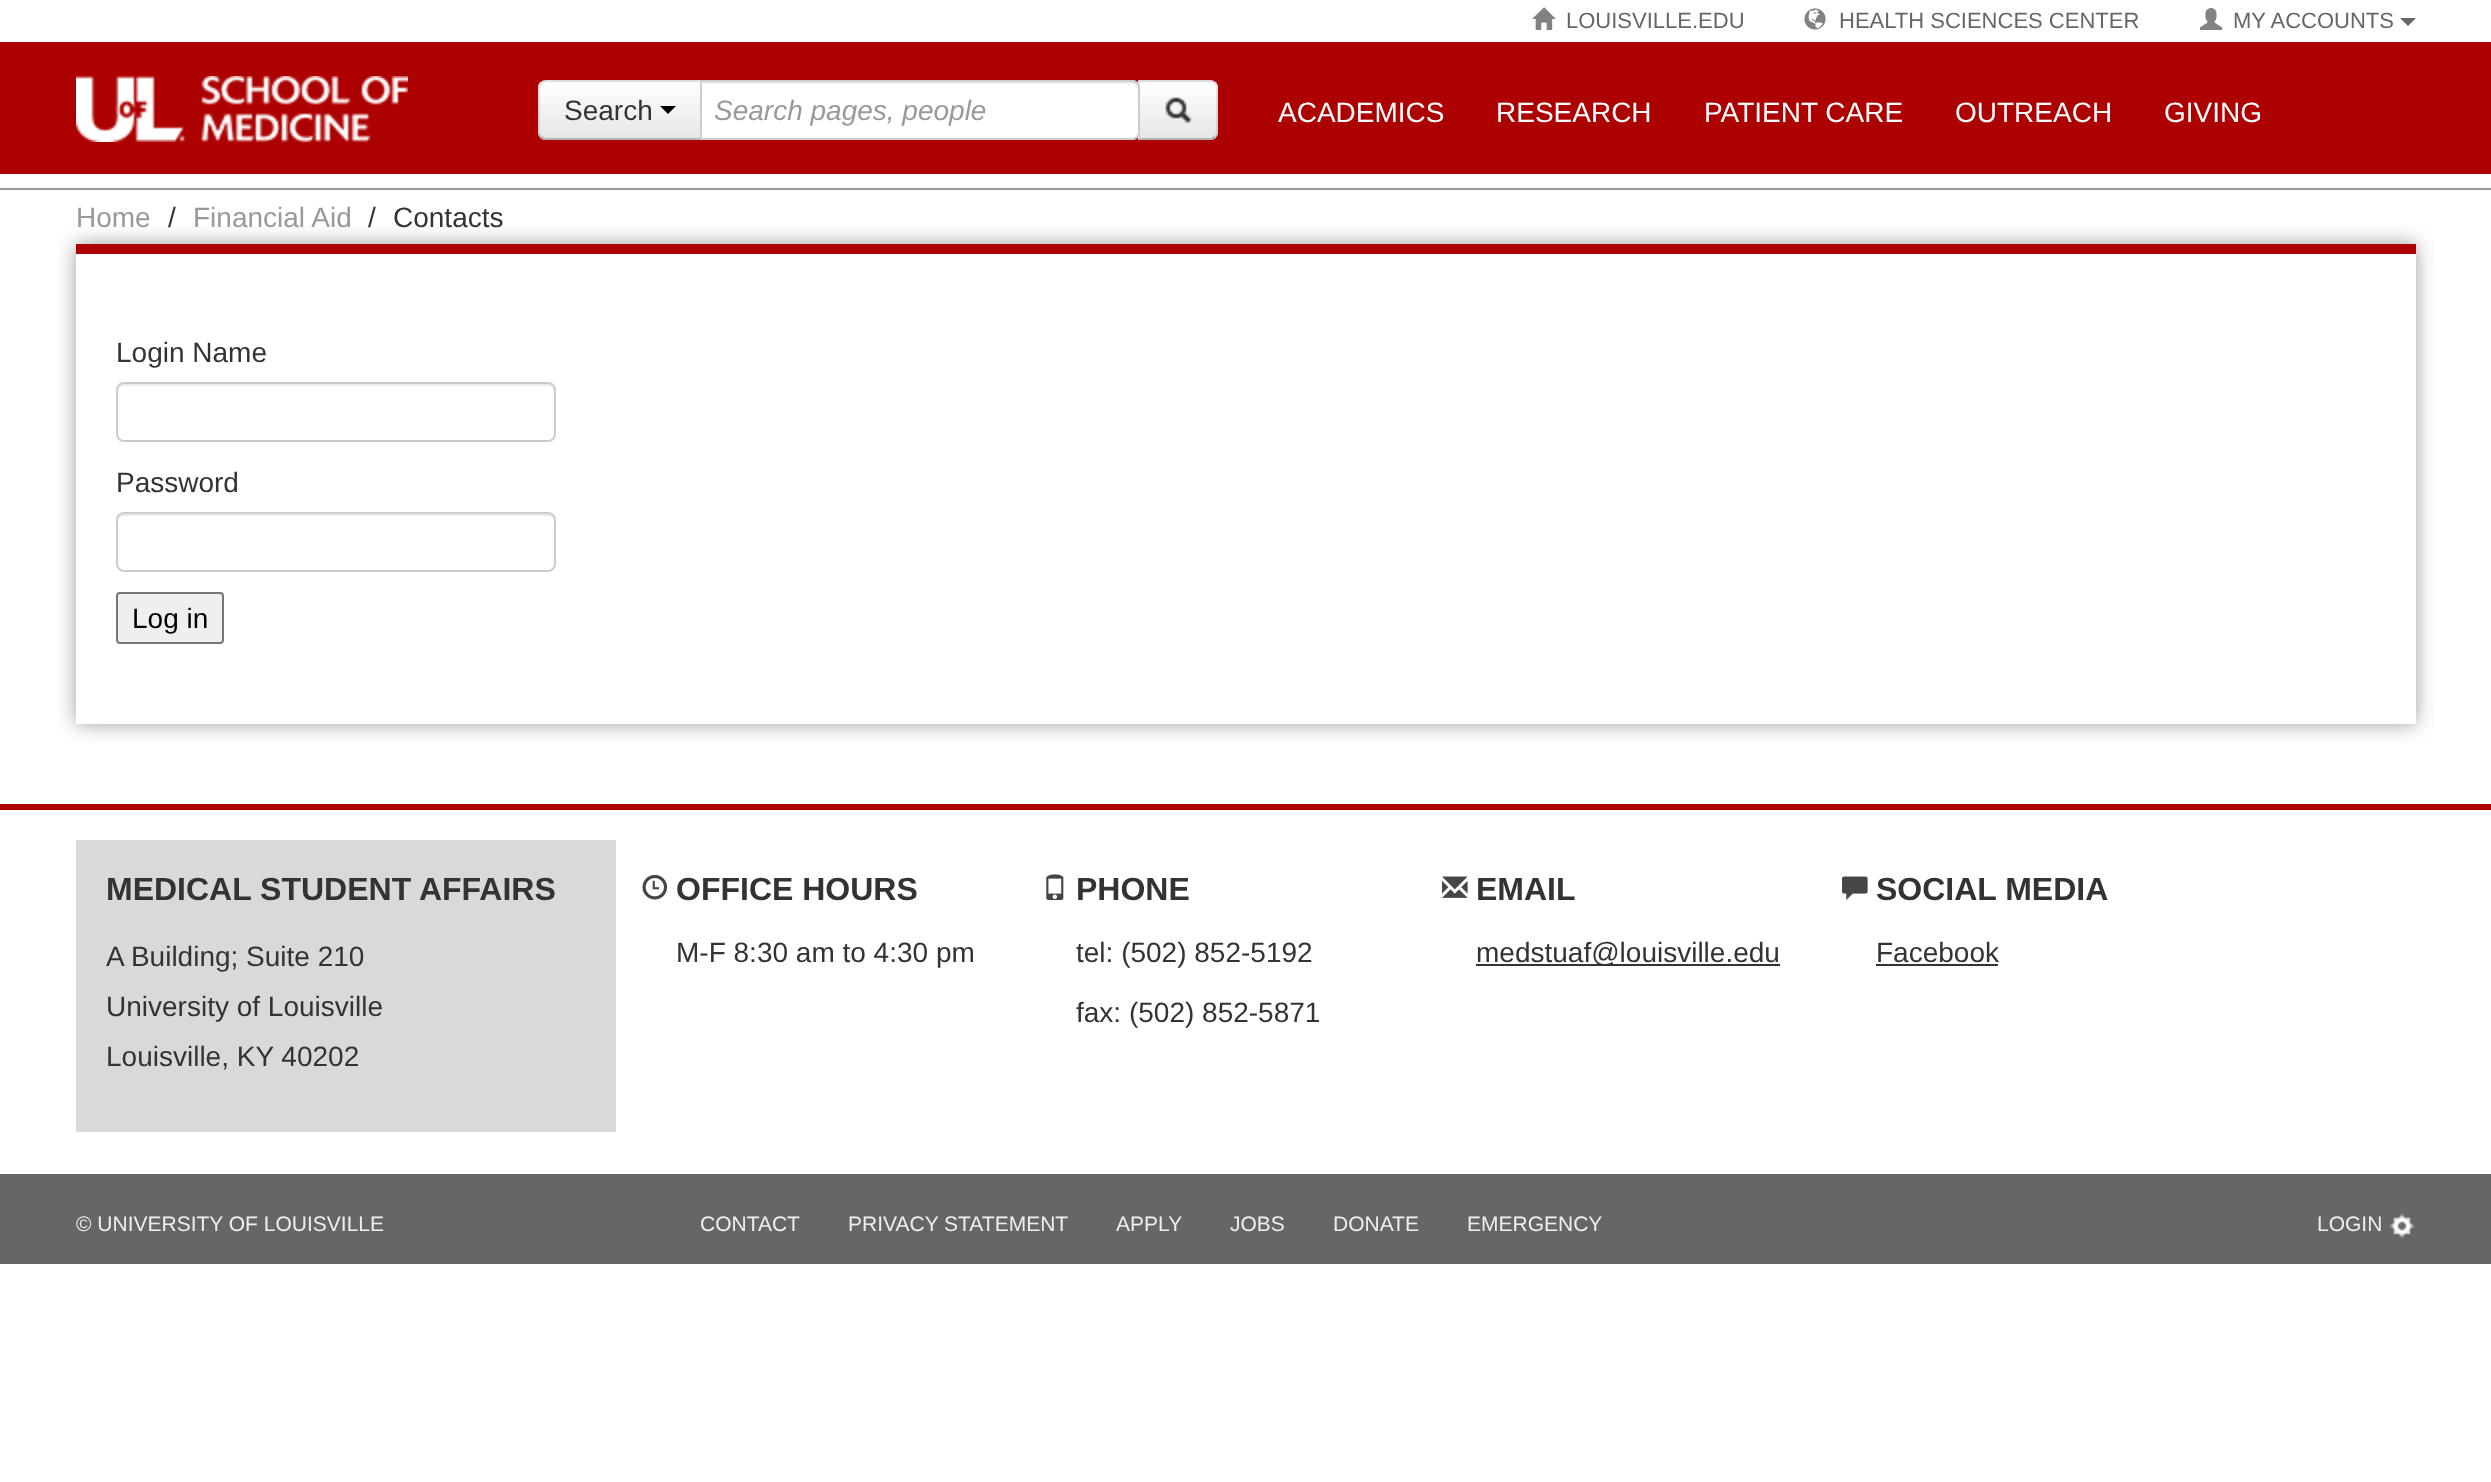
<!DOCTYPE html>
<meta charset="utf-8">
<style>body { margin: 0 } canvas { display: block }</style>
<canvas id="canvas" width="2491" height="1482"></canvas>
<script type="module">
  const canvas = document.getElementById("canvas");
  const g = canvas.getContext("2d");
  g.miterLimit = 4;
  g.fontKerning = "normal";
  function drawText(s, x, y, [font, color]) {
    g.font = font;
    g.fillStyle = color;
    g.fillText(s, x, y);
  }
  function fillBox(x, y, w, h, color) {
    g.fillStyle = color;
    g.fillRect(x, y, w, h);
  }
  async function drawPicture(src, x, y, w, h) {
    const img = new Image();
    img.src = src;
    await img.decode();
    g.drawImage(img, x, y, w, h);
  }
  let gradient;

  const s1 = ["22px Liberation Sans", "#666666"];
  const s2 = ["28px Liberation Sans", "#333333"];
  const s3 = ["italic 28px Liberation Sans", "#999999"];
  const s4 = ["28px Liberation Sans", "#FFFFFF"];
  const s5 = ["28px Liberation Sans", "#999999"];
  const s6 = ["28px Liberation Sans", "#000000"];
  const s7 = ["bold 32px Liberation Sans", "#333333"];
  const s8 = ["21px Liberation Sans", "#EEEEEE"];

  fillBox(0, 0, 2491, 1482, "#FFFFFF");
  fillBox(0, 188, 2491, 2, "#989898");
  await drawPicture("pic1.png", 1532, 7, 24, 23);
  drawText("LOUISVILLE.EDU", 1566, 28, s1);
  await drawPicture("pic2.png", 1804, 8, 22, 22);
  drawText("HEALTH SCIENCES CENTER", 1839, 28, s1);
  await drawPicture("pic3.png", 2200, 8, 22, 22);
  drawText("MY ACCOUNTS", 2233, 28, s1);
  g.beginPath();
  g.moveTo(2400, 18);
  g.lineTo(2416, 18);
  g.lineTo(2408, 26);
  g.closePath();
  g.fill();
  fillBox(0, 42, 2491, 132, "#AD0000");
  await drawPicture("pic4.png", 76, 76, 332, 66);
  g.fillStyle = "#F5F5F5";
  g.beginPath();
  g.roundRect(538, 80, 164, 60, [8, 0, 0, 8]);
  g.fill();
  g.save();
  g.beginPath();
  g.roundRect(538, 80, 164, 60, [8, 0, 0, 8]);
  g.clip();
  gradient = g.createLinearGradient(620, 82, 620, 138);
  gradient.addColorStop(0, "#FFFFFF");
  gradient.addColorStop(1, "#E6E6E6");
  g.fillStyle = gradient;
  g.fillRect(538, 82, 162, 56);
  g.restore();
  g.fillStyle = "rgba(0, 0, 0, 0.1)";
  g.beginPath();
  g.moveTo(546, 80);
  g.bezierCurveTo(544, 80, 542, 81, 540, 82);
  g.lineTo(542, 84);
  g.lineTo(545, 82);
  g.lineTo(700, 82);
  g.lineTo(702, 80);
  g.closePath();
  g.fill();
  g.fillStyle = "#B3B3B3";
  g.beginPath();
  g.moveTo(702, 140);
  g.lineTo(700, 138);
  g.lineTo(545, 138);
  g.lineTo(542, 136);
  g.lineTo(540, 138);
  g.bezierCurveTo(542, 139, 544, 140, 546, 140);
  g.closePath();
  g.fill();
  g.fillStyle = "rgba(0, 0, 0, 0.1)";
  g.beginPath();
  g.moveTo(538, 88);
  g.lineTo(538, 132);
  g.bezierCurveTo(538, 134, 539, 136, 540, 138);
  g.lineTo(542, 136);
  g.bezierCurveTo(541, 135, 540, 134, 540, 132);
  g.lineTo(540, 88);
  g.bezierCurveTo(540, 86, 541, 85, 542, 84);
  g.lineTo(540, 82);
  g.bezierCurveTo(539, 84, 538, 86, 538, 88);
  g.closePath();
  g.fill();
  drawText("Search", 564, 120, s2);
  g.fillStyle = "#000000";
  g.beginPath();
  g.moveTo(660, 106);
  g.lineTo(676, 106);
  g.lineTo(668, 114);
  g.closePath();
  g.fill();
  g.fillStyle = "#F5F5F5";
  g.beginPath();
  g.roundRect(1138, 80, 80, 60, [0, 8, 8, 0]);
  g.fill();
  g.save();
  g.beginPath();
  g.roundRect(1138, 80, 80, 60, [0, 8, 8, 0]);
  g.clip();
  gradient = g.createLinearGradient(1178, 82, 1178, 138);
  gradient.addColorStop(0, "#FFFFFF");
  gradient.addColorStop(1, "#E6E6E6");
  g.fillStyle = gradient;
  g.fillRect(1138, 82, 80, 56);
  g.restore();
  g.fillStyle = "rgba(0, 0, 0, 0.1)";
  g.beginPath();
  g.moveTo(1138, 80);
  g.lineTo(1140, 82);
  g.lineTo(1211, 82);
  g.lineTo(1214, 84);
  g.lineTo(1216, 82);
  g.bezierCurveTo(1214, 81, 1212, 80, 1210, 80);
  g.closePath();
  g.fill();
  g.beginPath();
  g.moveTo(1218, 132);
  g.lineTo(1218, 88);
  g.bezierCurveTo(1218, 86, 1217, 84, 1216, 82);
  g.lineTo(1214, 84);
  g.bezierCurveTo(1215, 85, 1216, 86, 1216, 88);
  g.lineTo(1216, 132);
  g.bezierCurveTo(1216, 134, 1215, 135, 1214, 136);
  g.lineTo(1216, 138);
  g.bezierCurveTo(1217, 136, 1218, 134, 1218, 132);
  g.closePath();
  g.fill();
  g.fillStyle = "#B3B3B3";
  g.beginPath();
  g.moveTo(1210, 140);
  g.bezierCurveTo(1212, 140, 1214, 139, 1216, 138);
  g.lineTo(1214, 136);
  g.lineTo(1211, 138);
  g.lineTo(1140, 138);
  g.lineTo(1138, 140);
  g.closePath();
  g.fill();
  g.fillStyle = "rgba(0, 0, 0, 0.1)";
  g.beginPath();
  g.moveTo(1138, 80);
  g.lineTo(1138, 140);
  g.lineTo(1140, 138);
  g.lineTo(1140, 82);
  g.closePath();
  g.fill();
  g.fillStyle = "#FFFFFF";
  g.beginPath();
  g.roundRect(700, 80, 440, 60, [0, 8, 8, 0]);
  g.fill();
  g.fillStyle = "#ECECEC";
  g.beginPath();
  g.moveTo(702, 84);
  g.lineTo(1132, 84);
  g.bezierCurveTo(1135, 84, 1138, 87, 1138, 90);
  g.lineTo(1138, 88);
  g.bezierCurveTo(1138, 85, 1135, 82, 1132, 82);
  g.lineTo(702, 82);
  g.closePath();
  g.fill();
  g.beginPath();
  g.roundRect(701, 81, 438, 58, [0, 7, 7, 0]);
  g.strokeStyle = "#CCCCCC";
  g.lineWidth = 2;
  g.stroke();
  drawText("Search pages, people", 714, 120, s3);
  await drawPicture("pic5.png", 1165, 97, 27, 27);
  drawText("ACADEMICS", 1278, 122, s4);
  drawText("RESEARCH", 1496, 122, s4);
  drawText("PATIENT CARE", 1704, 122, s4);
  drawText("OUTREACH", 1955, 122, s4);
  drawText("GIVING", 2164, 122, s4);
  g.save();
  g.beginPath();
  g.moveTo(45, 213);
  g.lineTo(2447, 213);
  g.lineTo(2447, 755);
  g.lineTo(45, 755);
  g.closePath();
  g.moveTo(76, 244);
  g.lineTo(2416, 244);
  g.lineTo(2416, 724);
  g.lineTo(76, 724);
  g.closePath();
  g.clip("evenodd");
  g.fillStyle = "#9B9B9B";
  g.filter = "blur(10px)";
  g.beginPath();
  g.rect(76, 244, 2340, 480);
  g.fill();
  g.filter = "none";
  g.restore();
  drawText("Home", 76, 227, s5);
  drawText("/", 168, 227, s2);
  drawText("Financial Aid", 193, 227, s5);
  drawText("/", 368, 227, s2);
  drawText("Contacts", 393, 227, s2);
  fillBox(76, 244, 2340, 10, "#AD0000");
  drawText("Login Name", 116, 362, s2);
  g.fillStyle = "#ECECEC";
  g.beginPath();
  g.moveTo(124, 386);
  g.lineTo(548, 386);
  g.bezierCurveTo(551, 386, 554, 389, 554, 392);
  g.lineTo(554, 390);
  g.bezierCurveTo(554, 387, 551, 384, 548, 384);
  g.lineTo(124, 384);
  g.bezierCurveTo(121, 384, 118, 387, 118, 390);
  g.lineTo(118, 392);
  g.bezierCurveTo(118, 389, 121, 386, 124, 386);
  g.closePath();
  g.fill();
  g.beginPath();
  g.roundRect(117, 383, 438, 58, 7);
  g.stroke();
  drawText("Password", 116, 492, s2);
  g.fillStyle = "#ECECEC";
  g.beginPath();
  g.moveTo(124, 516);
  g.lineTo(548, 516);
  g.bezierCurveTo(551, 516, 554, 519, 554, 522);
  g.lineTo(554, 520);
  g.bezierCurveTo(554, 517, 551, 514, 548, 514);
  g.lineTo(124, 514);
  g.bezierCurveTo(121, 514, 118, 517, 118, 520);
  g.lineTo(118, 522);
  g.bezierCurveTo(118, 519, 121, 516, 124, 516);
  g.closePath();
  g.fill();
  g.beginPath();
  g.roundRect(117, 513, 438, 58, 7);
  g.stroke();
  g.fillStyle = "#EFEFEF";
  g.beginPath();
  g.roundRect(117, 593, 106, 50, 3);
  g.fill();
  g.strokeStyle = "#767676";
  g.stroke();
  drawText("Log in", 132, 628, s6);
  fillBox(0, 804, 2491, 6, "#AD0000");
  fillBox(76, 840, 540, 292, "#D9D9D9");
  drawText("MEDICAL STUDENT AFFAIRS", 106, 900, s7);
  drawText("A Building; Suite 210", 106, 966, s2);
  drawText("University of Louisville", 106, 1016, s2);
  drawText("Louisville, KY 40202", 106, 1066, s2);
  await drawPicture("pic6.png", 642, 874, 26, 26);
  drawText("OFFICE HOURS", 676, 900, s7);
  drawText("M-F 8:30 am to 4:30 pm", 676, 962, s2);
  await drawPicture("pic7.png", 1046, 874, 18, 26);
  drawText("PHONE", 1076, 900, s7);
  drawText("tel: (502) 852-5192", 1076, 962, s2);
  drawText("fax: (502) 852-5871", 1076, 1022, s2);
  await drawPicture("pic8.png", 1442, 876, 26, 22);
  drawText("EMAIL", 1476, 900, s7);
  fillBox(1476, 964, 304, 2, "#333333");
  drawText("medstuaf@louisville.edu", 1476, 962, s2);
  await drawPicture("pic9.png", 1842, 876, 26, 24);
  drawText("SOCIAL MEDIA", 1876, 900, s7);
  drawText("Facebook", 1876, 962, s2);
  fillBox(1876, 964, 122, 2, "#333333");
  fillBox(0, 1174, 2491, 90, "#666666");
  drawText("© UNIVERSITY OF LOUISVILLE", 76, 1231, s8);
  drawText("CONTACT", 700, 1231, s8);
  drawText("PRIVACY STATEMENT", 848, 1231, s8);
  drawText("APPLY", 1116, 1231, s8);
  drawText("JOBS", 1230, 1231, s8);
  drawText("DONATE", 1333, 1231, s8);
  drawText("EMERGENCY", 1467, 1231, s8);
  drawText("LOGIN", 2317, 1231, s8);
  await drawPicture("pic10.png", 2389, 1213, 26, 26);
</script>
